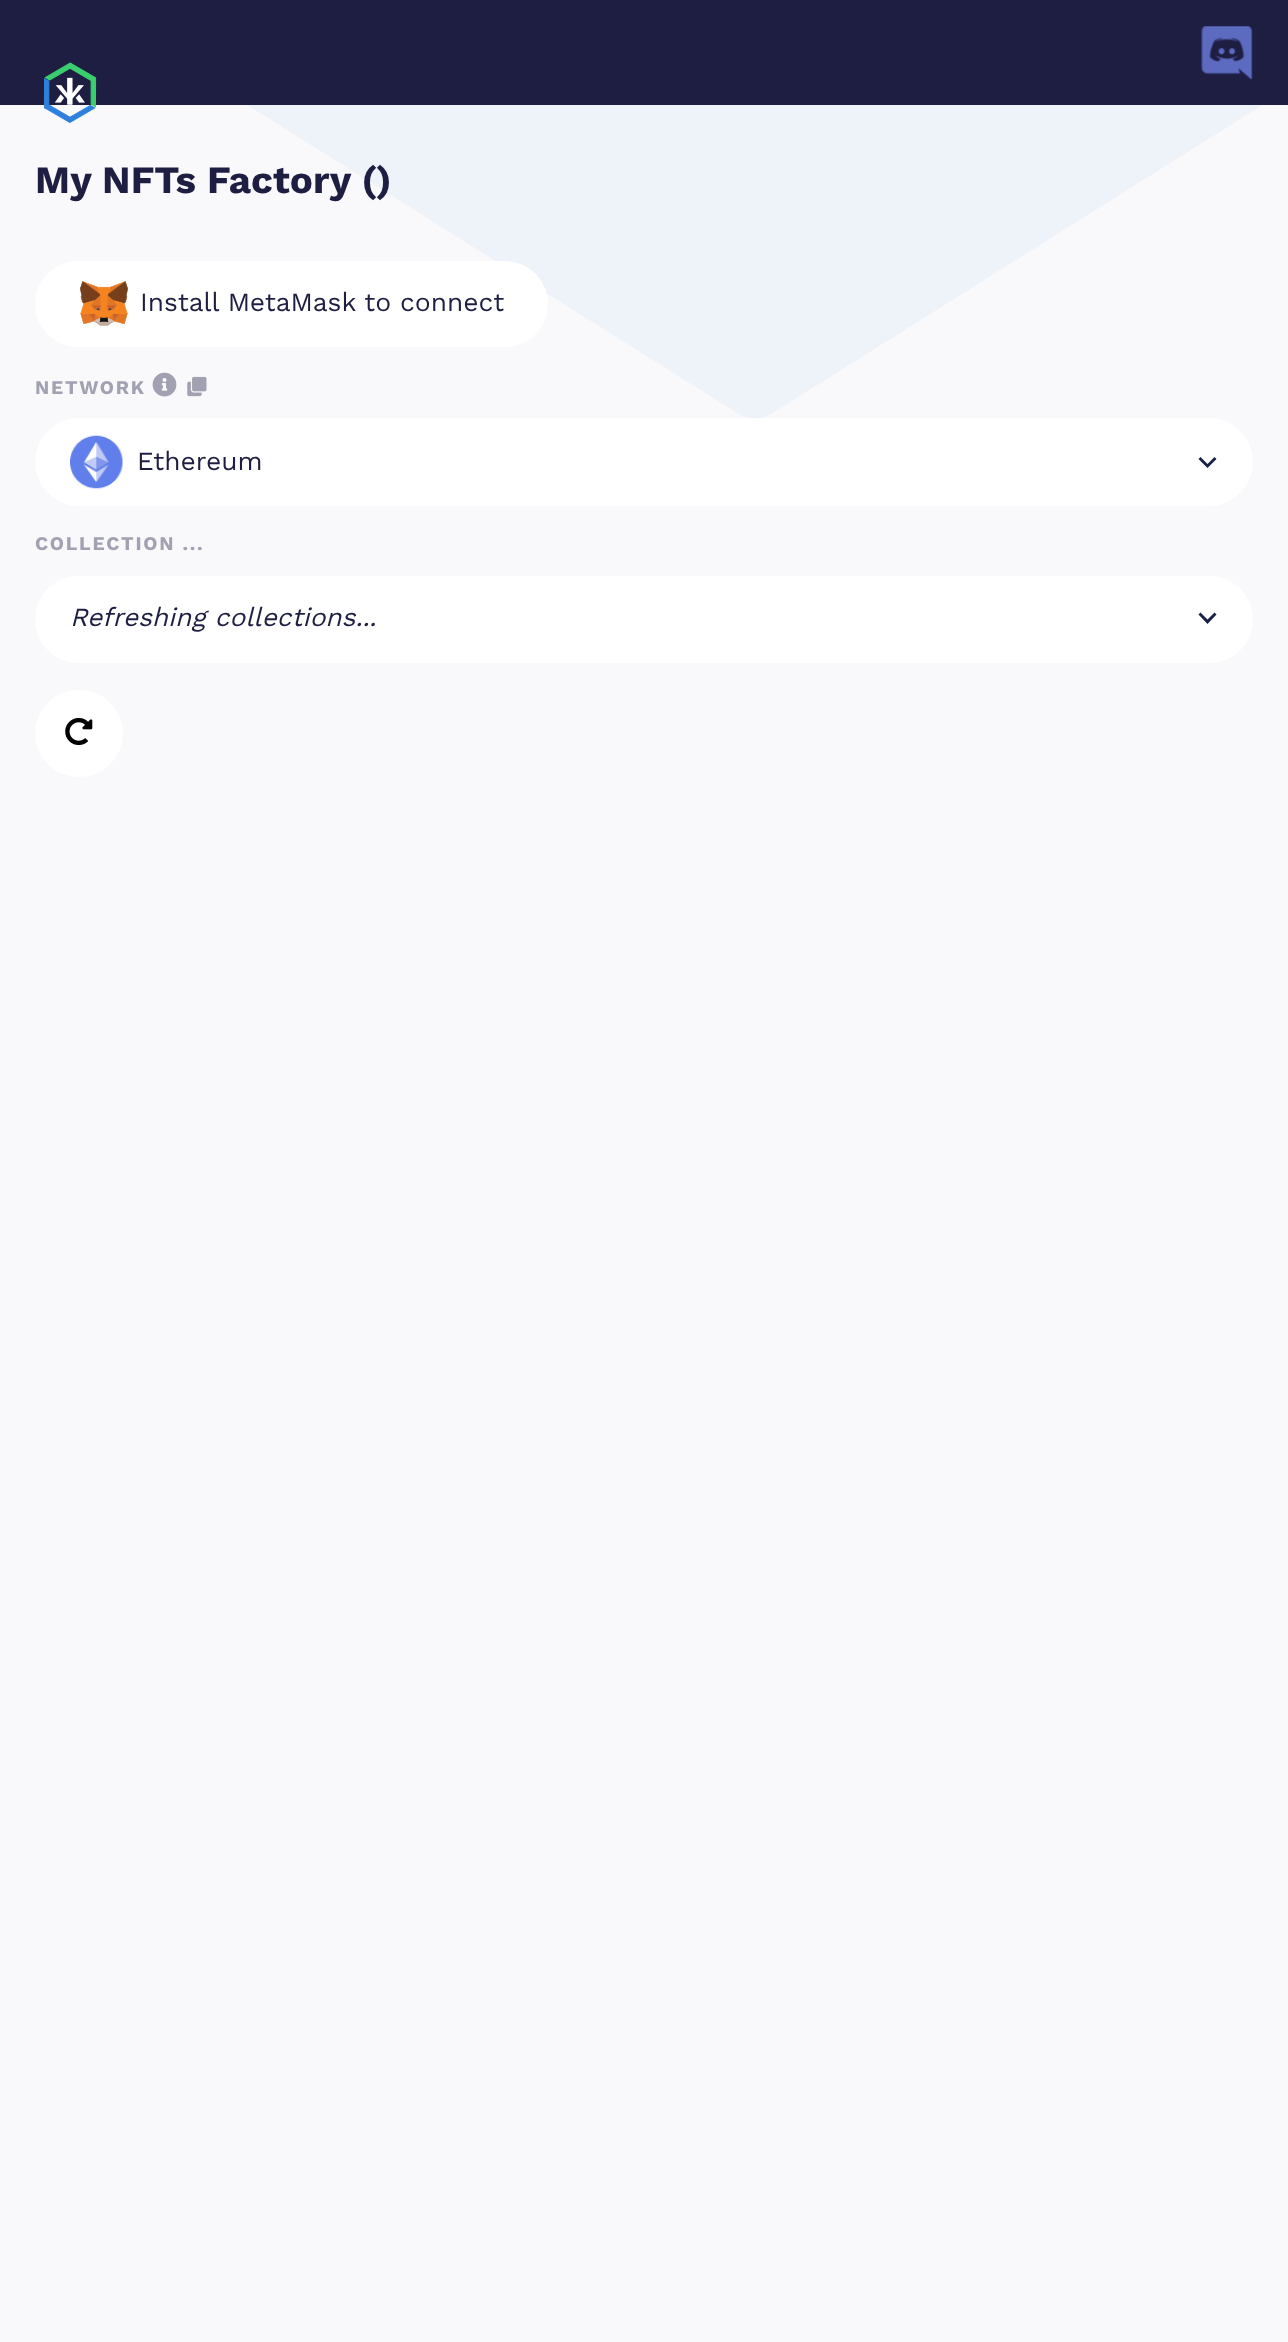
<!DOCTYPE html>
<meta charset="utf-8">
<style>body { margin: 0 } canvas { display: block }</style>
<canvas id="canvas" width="1288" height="2342"></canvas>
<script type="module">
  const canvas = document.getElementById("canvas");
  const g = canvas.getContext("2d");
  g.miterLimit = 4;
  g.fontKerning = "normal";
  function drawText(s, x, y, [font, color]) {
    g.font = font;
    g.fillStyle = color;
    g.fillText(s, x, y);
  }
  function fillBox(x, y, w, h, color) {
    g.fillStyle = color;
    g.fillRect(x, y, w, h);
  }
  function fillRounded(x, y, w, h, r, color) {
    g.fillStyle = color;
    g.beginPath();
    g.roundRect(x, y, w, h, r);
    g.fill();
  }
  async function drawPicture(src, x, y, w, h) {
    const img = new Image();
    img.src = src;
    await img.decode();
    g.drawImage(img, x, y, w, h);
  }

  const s1 = ["bold 38.5px Work Sans", "#1E1E43"];
  const s2 = ["26.25px Work Sans", "#1E1E43"];
  const s3 = ["bold 19.25px Work Sans", "#A1A1B1"];
  const s4 = ["italic 26.25px Work Sans", "#1E1E43"];

  fillBox(0, 0, 1288, 2342, "#F9F9FB");
  await drawPicture("pic1.png", 248, 105, 1014, 313);
  fillBox(0, 0, 1288, 105, "#1E1E43");
  await drawPicture("pic2.png", 1200, 26, 53, 54);
  await drawPicture("pic3.png", 43, 62, 54, 61);
  drawText("My NFTs Factory ()", 35, 193, s1);
  fillRounded(35, 261, 513, 86, 43, "#FFFFFF");
  await drawPicture("pic4.png", 80, 281, 48, 45);
  drawText("Install MetaMask to connect", 140, 311, s2);
  g.letterSpacing = "1.75px";
  drawText("NETWORK", 35, 394, s3);
  await drawPicture("pic5.png", 152, 372, 25, 25);
  await drawPicture("pic6.png", 187, 376, 20, 21);
  fillRounded(35, 418, 1218, 88, 44, "#FFFFFF");
  g.fillStyle = "#192147";
  g.beginPath();
  g.moveTo(1216.5, 459);
  g.lineTo(1214.5, 457);
  g.lineTo(1207.5, 464);
  g.lineTo(1200.5, 457);
  g.lineTo(1198.5, 459);
  g.lineTo(1207.5, 468);
  g.closePath();
  g.fill();
  await drawPicture("pic7.png", 70, 435, 53, 54);
  g.letterSpacing = "0px";
  drawText("Ethereum", 137, 470, s2);
  g.letterSpacing = "1.75px";
  drawText("COLLECTION ...", 35, 550, s3);
  fillRounded(35, 576, 1218, 87, 43.5, "#FFFFFF");
  g.fillStyle = "#192147";
  g.beginPath();
  g.moveTo(1216.5, 614.5);
  g.lineTo(1214.5, 612.5);
  g.lineTo(1207.5, 619.5);
  g.lineTo(1200.5, 612.5);
  g.lineTo(1198.5, 614.5);
  g.lineTo(1207.5, 624);
  g.closePath();
  g.fill();
  g.letterSpacing = "0px";
  drawText("Refreshing collections...", 70, 626, s4);
  fillRounded(35, 690, 88, 87, 43.5, "#FFFFFF");
  await drawPicture("pic8.png", 65, 717, 28, 29);
</script>
